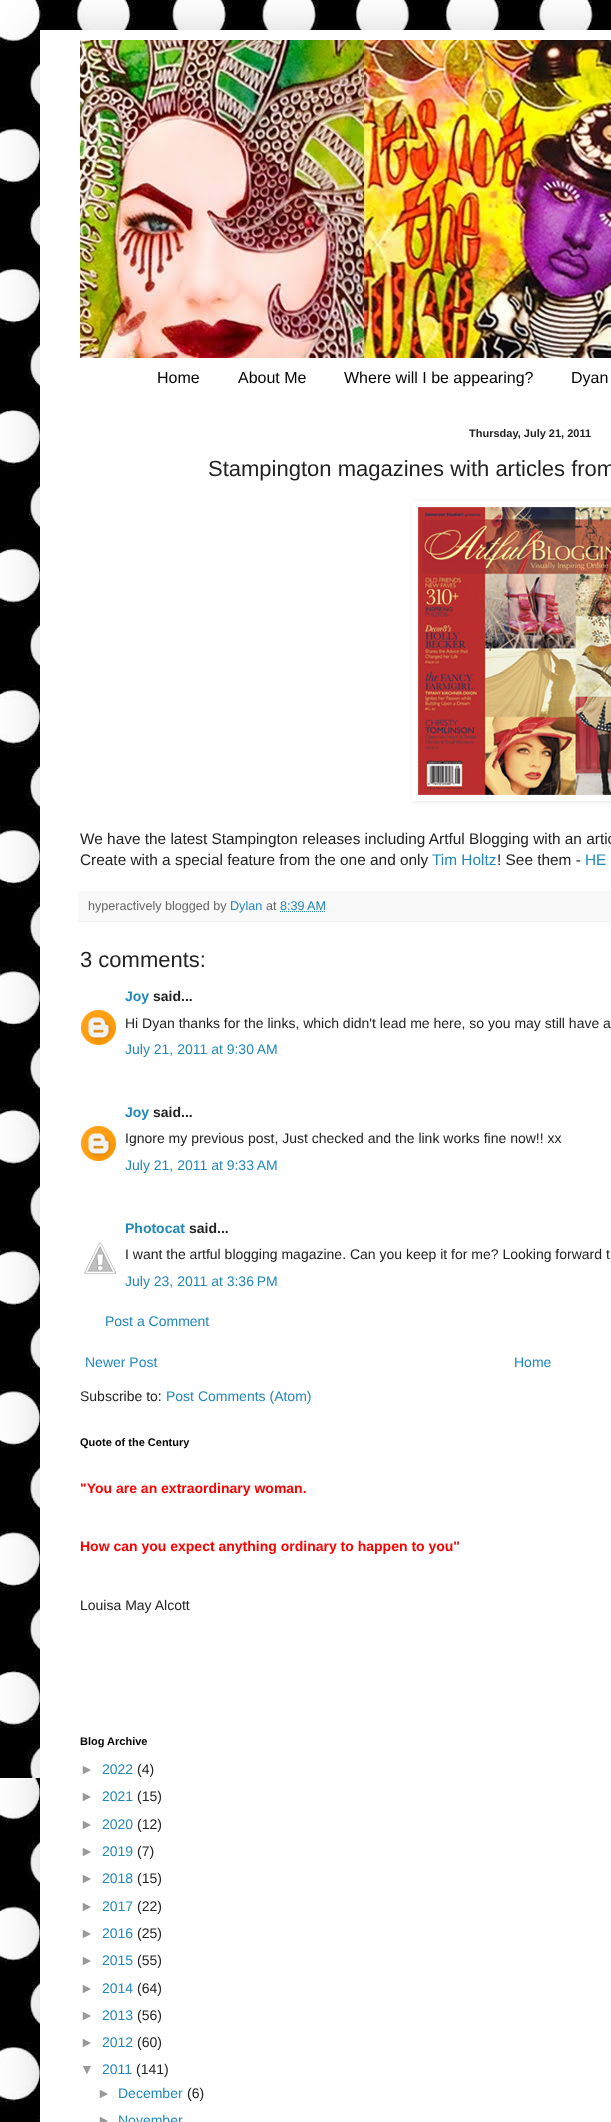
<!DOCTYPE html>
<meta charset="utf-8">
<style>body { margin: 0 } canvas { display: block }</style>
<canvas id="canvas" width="611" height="2122"></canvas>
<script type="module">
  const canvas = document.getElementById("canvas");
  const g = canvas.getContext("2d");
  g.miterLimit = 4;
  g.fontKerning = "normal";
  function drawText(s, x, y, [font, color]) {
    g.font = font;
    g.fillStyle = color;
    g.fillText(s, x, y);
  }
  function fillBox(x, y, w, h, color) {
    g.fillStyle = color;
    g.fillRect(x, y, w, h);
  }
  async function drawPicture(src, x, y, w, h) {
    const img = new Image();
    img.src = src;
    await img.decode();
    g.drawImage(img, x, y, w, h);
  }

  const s1 = ["16px Liberation Sans", "#000000"];
  const s2 = ["bold 11px Liberation Sans", "#222222"];
  const s3 = ["22px Liberation Sans", "#222222"];
  const s4 = ["15.4px Liberation Sans", "#222222"];
  const s5 = ["15.4px Liberation Sans", "#2288BB"];
  const s6 = ["12.6px Liberation Sans", "#666666"];
  const s7 = ["12.6px Liberation Sans", "#2288BB"];
  const s8 = ["bold 14px Liberation Sans", "#2288BB"];
  const s9 = ["bold 14px Liberation Sans", "#222222"];
  const s10 = ["14px Liberation Sans", "#222222"];
  const s11 = ["14px Liberation Sans", "#2288BB"];
  const s12 = ["bold 11px Liberation Sans", "#000000"];
  const s13 = ["bold 14px Liberation Sans", "#FF0000"];
  const s14 = ["14px Liberation Sans", "#999999"];

  fillBox(0, 0, 611, 2122, "#FFFFFF");
  await drawPicture("pic1.png", 0, 0, 611, 2122);
  g.fillStyle = "rgba(0, 0, 0, 0.15)";
  g.filter = "blur(20px)";
  g.beginPath();
  g.rect(40, 30, 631, 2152);
  g.fill();
  g.filter = "none";
  fillBox(40, 30, 571, 2092, "#FFFFFF");
  await drawPicture("pic2.png", 80, 40, 531, 318);
  drawText("Home", 157, 383, s1);
  drawText("About Me", 238, 383, s1);
  drawText("Where will I be appearing?", 344, 383, s1);
  drawText("Dyan", 571, 383, s1);
  drawText("Thursday, July 21, 2011", 469, 437, s2);
  drawText("Stampington magazines with articles from", 208, 476, s3);
  g.save();
  g.beginPath();
  g.moveTo(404, 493);
  g.lineTo(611, 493);
  g.lineTo(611, 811);
  g.lineTo(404, 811);
  g.closePath();
  g.moveTo(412, 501);
  g.lineTo(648, 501);
  g.lineTo(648, 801);
  g.lineTo(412, 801);
  g.closePath();
  g.clip("evenodd");
  g.fillStyle = "rgba(0, 0, 0, 0.1)";
  g.filter = "blur(2.5px)";
  g.beginPath();
  g.rect(413, 502, 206, 300);
  g.fill();
  g.filter = "none";
  g.restore();
  await drawPicture("pic3.png", 418, 507, 193, 288);
  drawText("We have the latest Stampington releases including Artful Blogging with an artic", 80, 844, s4);
  drawText("Create with a special feature from the one and only", 80, 865, s4);
  drawText("Tim Holtz", 432, 865, s5);
  drawText("! See them -", 497, 865, s4);
  drawText("HE", 585, 865, s5);
  fillBox(78, 891, 533, 30, "#F9F9F9");
  fillBox(78, 921, 533, 1, "#EEEEEE");
  drawText("hyperactively blogged by", 88, 910, s6);
  drawText("Dylan", 230, 910, s7);
  drawText("at", 266, 910, s6);
  drawText("8:39 AM", 280, 910, s7);
  g.beginPath();
  g.moveTo(280, 911.5);
  g.lineTo(326, 911.5);
  g.strokeStyle = "#2288BB";
  g.setLineDash([1, 1]);
  g.stroke();
  drawText("3 comments:", 80, 967, s3);
  drawText("Joy", 125, 1001, s8);
  drawText("said...", 153, 1001, s9);
  await drawPicture("pic4.png", 81, 1010, 35, 35);
  drawText("Hi Dyan thanks for the links, which didn't lead me here, so you may still have a", 125, 1028, s10);
  drawText("July 21, 2011 at 9:30 AM", 125, 1054, s11);
  drawText("Joy", 125, 1117, s8);
  drawText("said...", 153, 1117, s9);
  await drawPicture("pic4.png", 81, 1126, 35, 35);
  drawText("Ignore my previous post, Just checked and the link works fine now!! xx", 125, 1143, s10);
  drawText("July 21, 2011 at 9:33 AM", 125, 1170, s11);
  drawText("Photocat", 125, 1233, s8);
  drawText("said...", 189, 1233, s9);
  await drawPicture("pic5.png", 84, 1242, 32, 32);
  drawText("I want the artful blogging magazine. Can you keep it for me? Looking forward t", 125, 1259, s10);
  drawText("July 23, 2011 at 3:36 PM", 125, 1286, s11);
  drawText("Post a Comment", 105, 1326, s11);
  drawText("Newer Post", 85, 1367, s11);
  drawText("Home", 514, 1367, s11);
  drawText("Subscribe to:", 80, 1401, s10);
  drawText("Post Comments (Atom)", 166, 1401, s11);
  drawText("Quote of the Century", 80, 1446, s12);
  drawText("\"You are an extraordinary woman.", 80, 1493, s13);
  drawText("How can you expect anything ordinary to happen to you\"", 80, 1551, s13);
  drawText("Louisa May Alcott", 80, 1610, s10);
  drawText("Blog Archive", 80, 1745, s12);
  drawText("►", 80, 1774, s14);
  drawText("2022", 102, 1774, s11);
  drawText("(4)", 137, 1774, s10);
  drawText("►", 80, 1801, s14);
  drawText("2021", 102, 1801, s11);
  drawText("(15)", 137, 1801, s10);
  drawText("►", 80, 1829, s14);
  drawText("2020", 102, 1829, s11);
  drawText("(12)", 137, 1829, s10);
  drawText("►", 80, 1856, s14);
  drawText("2019", 102, 1856, s11);
  drawText("(7)", 137, 1856, s10);
  drawText("►", 80, 1883, s14);
  drawText("2018", 102, 1883, s11);
  drawText("(15)", 137, 1883, s10);
  drawText("►", 80, 1911, s14);
  drawText("2017", 102, 1911, s11);
  drawText("(22)", 137, 1911, s10);
  drawText("►", 80, 1938, s14);
  drawText("2016", 102, 1938, s11);
  drawText("(25)", 137, 1938, s10);
  drawText("►", 80, 1965, s14);
  drawText("2015", 102, 1965, s11);
  drawText("(55)", 137, 1965, s10);
  drawText("►", 80, 1993, s14);
  drawText("2014", 102, 1993, s11);
  drawText("(64)", 137, 1993, s10);
  drawText("►", 80, 2020, s14);
  drawText("2013", 102, 2020, s11);
  drawText("(56)", 137, 2020, s10);
  drawText("►", 80, 2047, s14);
  drawText("2012", 102, 2047, s11);
  drawText("(60)", 137, 2047, s10);
  drawText("▼", 80, 2074, s14);
  drawText("2011", 102, 2074, s11);
  drawText("(141)", 136, 2074, s10);
  drawText("►", 97, 2098, s14);
  drawText("December", 118, 2098, s11);
  drawText("(6)", 187, 2098, s10);
  drawText("►", 97, 2125, s14);
  drawText("November", 118, 2125, s11);
</script>
